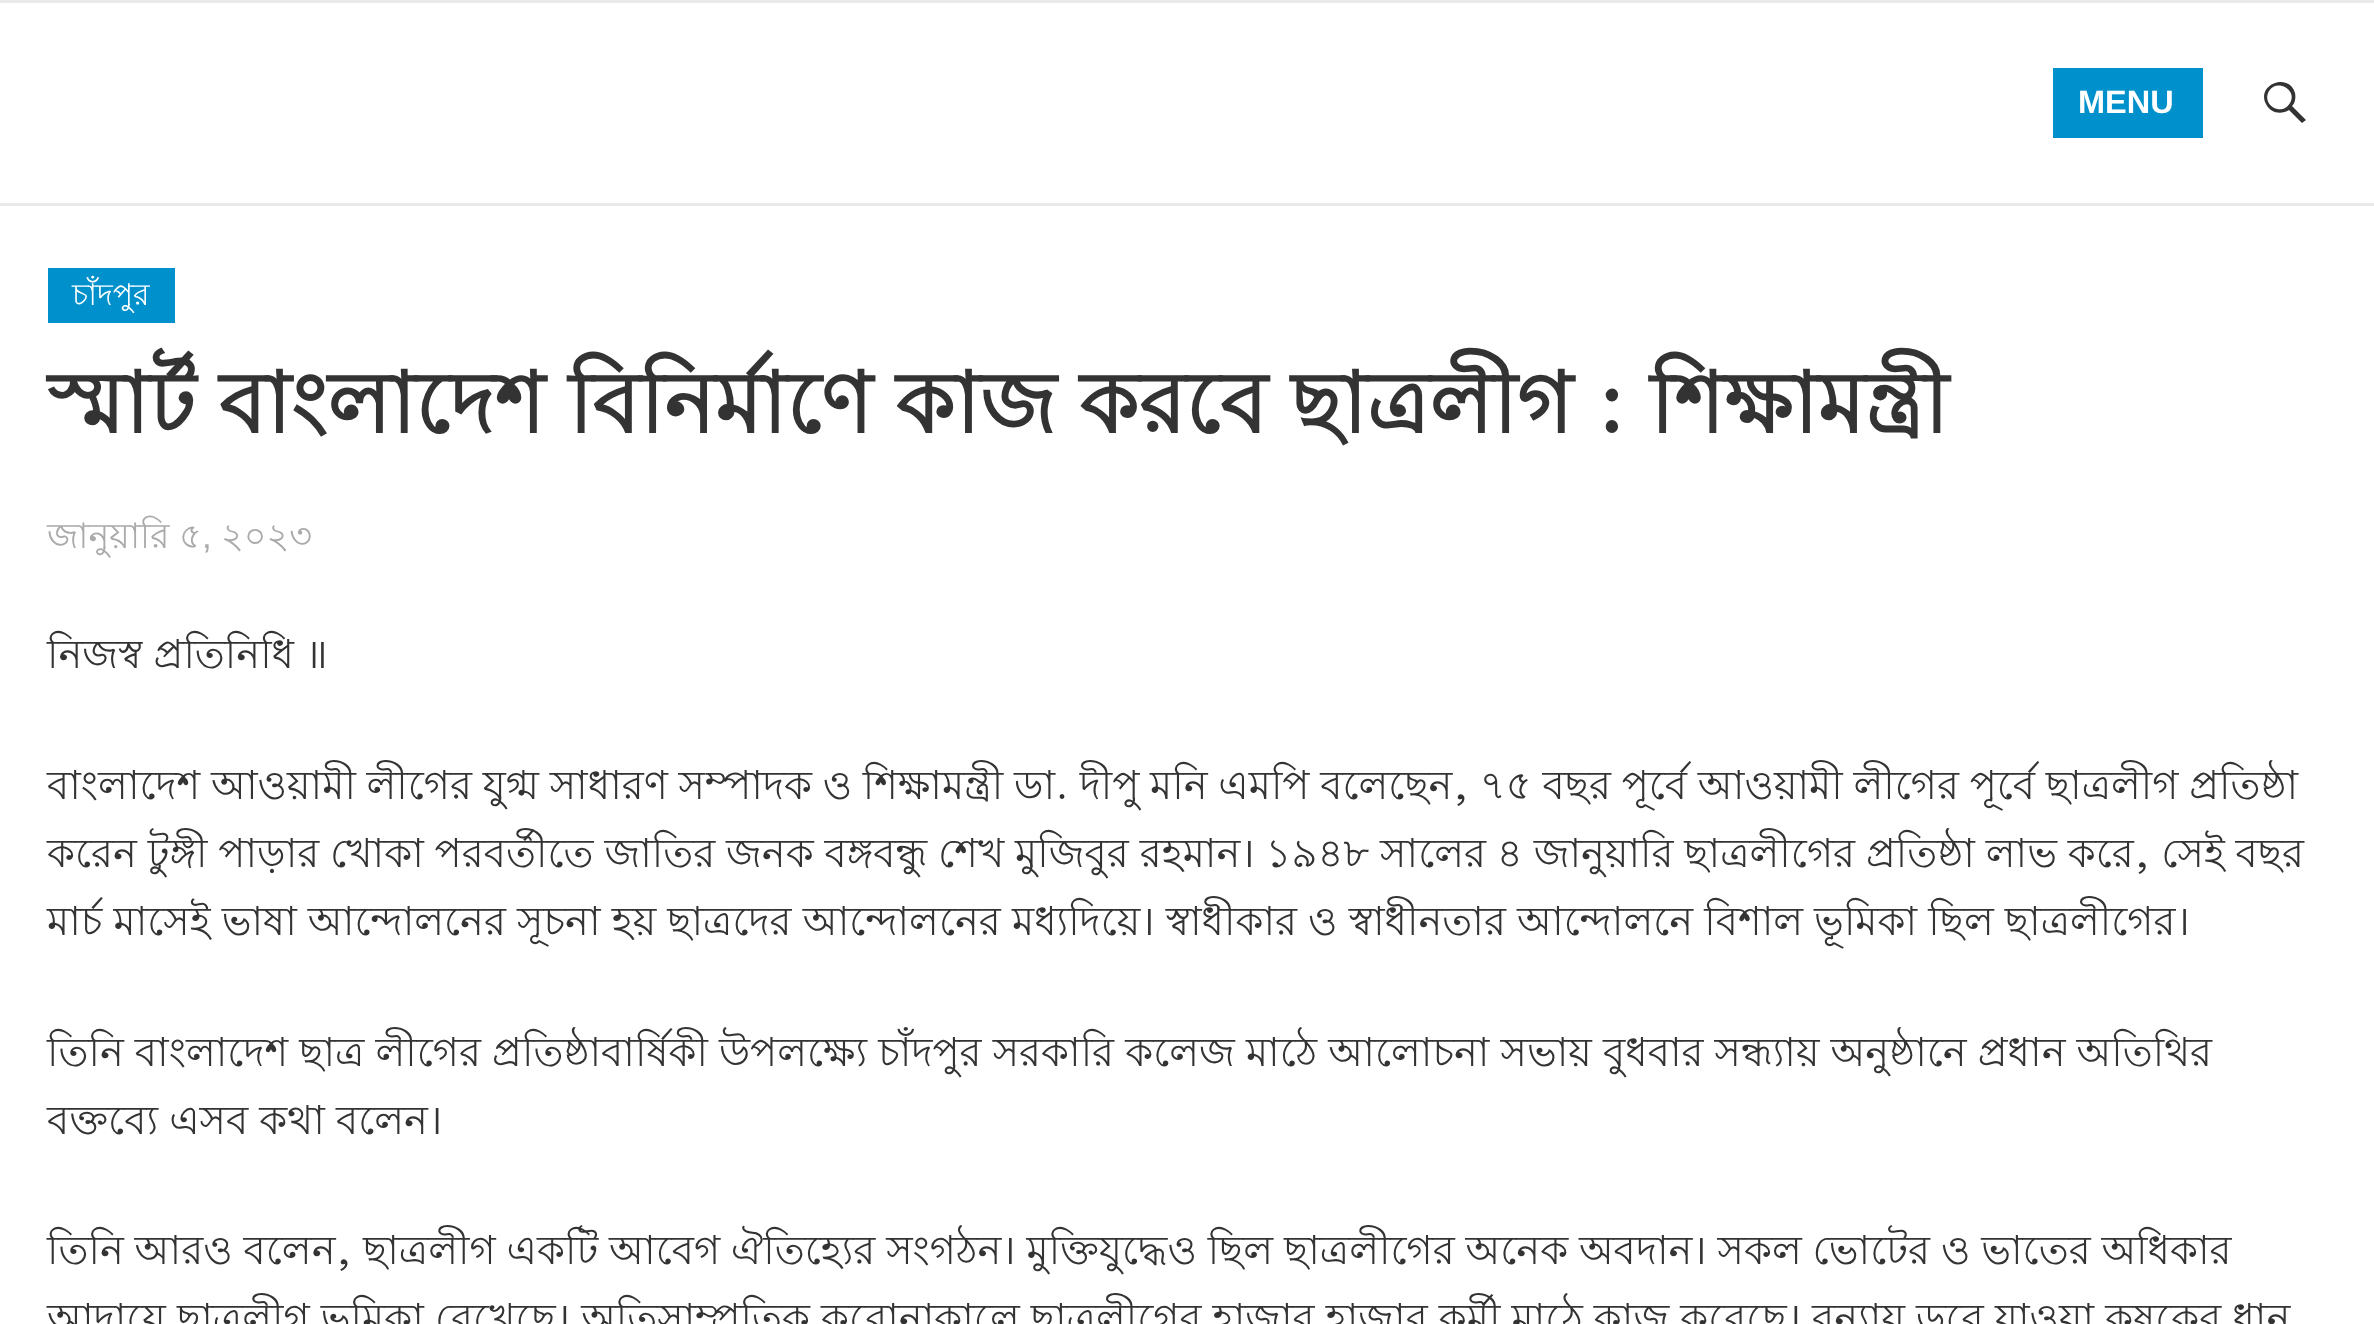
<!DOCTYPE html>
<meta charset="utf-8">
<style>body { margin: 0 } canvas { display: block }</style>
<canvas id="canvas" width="2374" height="1324"></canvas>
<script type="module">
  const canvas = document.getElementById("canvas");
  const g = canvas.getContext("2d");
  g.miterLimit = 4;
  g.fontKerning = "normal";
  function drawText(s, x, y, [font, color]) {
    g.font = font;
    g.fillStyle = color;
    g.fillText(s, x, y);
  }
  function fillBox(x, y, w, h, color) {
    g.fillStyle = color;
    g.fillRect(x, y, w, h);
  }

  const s1 = ["bold 32.5px Liberation Sans", "#FFFFFF"];
  const s2 = ["30px Lohit Bengali", "#FFFFFF"];
  const s3 = ["bold 85px Lohit Bengali", "#333333"];
  const s4 = ["35px Lohit Bengali", "#AAAAAA"];
  const s5 = ["35px Liberation Sans", "#AAAAAA"];
  const s6 = ["40px Lohit Bengali", "#333333"];

  fillBox(0, 0, 2374, 1324, "#FFFFFF");
  fillBox(0, 203, 2374, 3, "#E9E9E9");
  fillBox(0, 0, 2374, 3, "#E9E9E9");
  fillBox(2053, 68, 150, 70, "#0091CD");
  drawText("MENU", 2078, 113, s1);
  g.fillStyle = "#333333";
  g.beginPath();
  g.moveTo(2306, 120);
  g.lineTo(2302, 123);
  g.lineTo(2289, 110);
  g.bezierCurveTo(2281, 115, 2270, 113, 2266, 104);
  g.bezierCurveTo(2256, 84, 2289, 72, 2295, 93);
  g.bezierCurveTo(2296, 98, 2295, 103, 2292, 106);
  g.closePath();
  g.moveTo(2269, 91);
  g.bezierCurveTo(2261, 105, 2282, 117, 2290, 103);
  g.bezierCurveTo(2298, 90, 2277, 78, 2269, 91);
  g.closePath();
  g.fill();
  fillBox(48, 268, 127, 55, "#0091CD");
  drawText("চাঁদপুর", 72, 305, s2);
  drawText("স্মার্ট বাংলাদেশ বিনির্মাণে কাজ করবে ছাত্রলীগ : শিক্ষামন্ত্রী", 47, 433, s3);
  drawText("জানুয়ারি ৫", 47, 548, s4);
  drawText(",", 202, 548, s5);
  drawText("২০২৩", 221, 548, s4);
  drawText("নিজস্ব প্রতিনিধি ॥", 47, 668, s6);
  g.wordSpacing = "-0.4px";
  drawText("বাংলাদেশ আওয়ামী লীগের যুগ্ম সাধারণ সম্পাদক ও শিক্ষামন্ত্রী ডা. দীপু মনি এমপি বলেছেন, ৭৫ বছর পূর্বে আওয়ামী লীগের পূর্বে ছাত্রলীগ প্রতিষ্ঠা", 47, 799, s6);
  g.wordSpacing = "-0.25px";
  drawText("করেন টুঙ্গী পাড়ার খোকা পরবর্তীতে জাতির জনক বঙ্গবন্ধু শেখ মুজিবুর রহমান। ১৯৪৮ সালের ৪ জানুয়ারি ছাত্রলীগের প্রতিষ্ঠা লাভ করে, সেই বছর", 47, 867, s6);
  g.wordSpacing = "0px";
  drawText("মার্চ মাসেই ভাষা আন্দোলনের সূচনা হয় ছাত্রদের আন্দোলনের মধ্যদিয়ে। স্বাধীকার ও স্বাধীনতার আন্দোলনে বিশাল ভূমিকা ছিল ছাত্রলীগের।", 47, 935, s6);
  drawText("তিনি বাংলাদেশ ছাত্র লীগের প্রতিষ্ঠাবার্ষিকী উপলক্ষ্যে চাঁদপুর সরকারি কলেজ মাঠে আলোচনা সভায় বুধবার সন্ধ্যায় অনুষ্ঠানে প্রধান অতিথির", 47, 1066, s6);
  drawText("বক্তব্যে এসব কথা বলেন।", 47, 1134, s6);
  g.wordSpacing = "-0.25px";
  drawText("তিনি আরও বলেন, ছাত্রলীগ একটি আবেগ ঐতিহ্যের সংগঠন। মুক্তিযুদ্ধেও ছিল ছাত্রলীগের অনেক অবদান। সকল ভোটের ও ভাতের অধিকার", 47, 1264, s6);
  g.wordSpacing = "0px";
  drawText("আদায়ে ছাত্রলীগ ভুমিকা রেখেছে। অতিসাম্প্রতিক করোনাকালে ছাত্রলীগের হাজার হাজার কর্মী মাঠে কাজ করেছে। বন্যায় ডুবে যাওয়া কৃষকের ধান", 47, 1332, s6);
</script>
